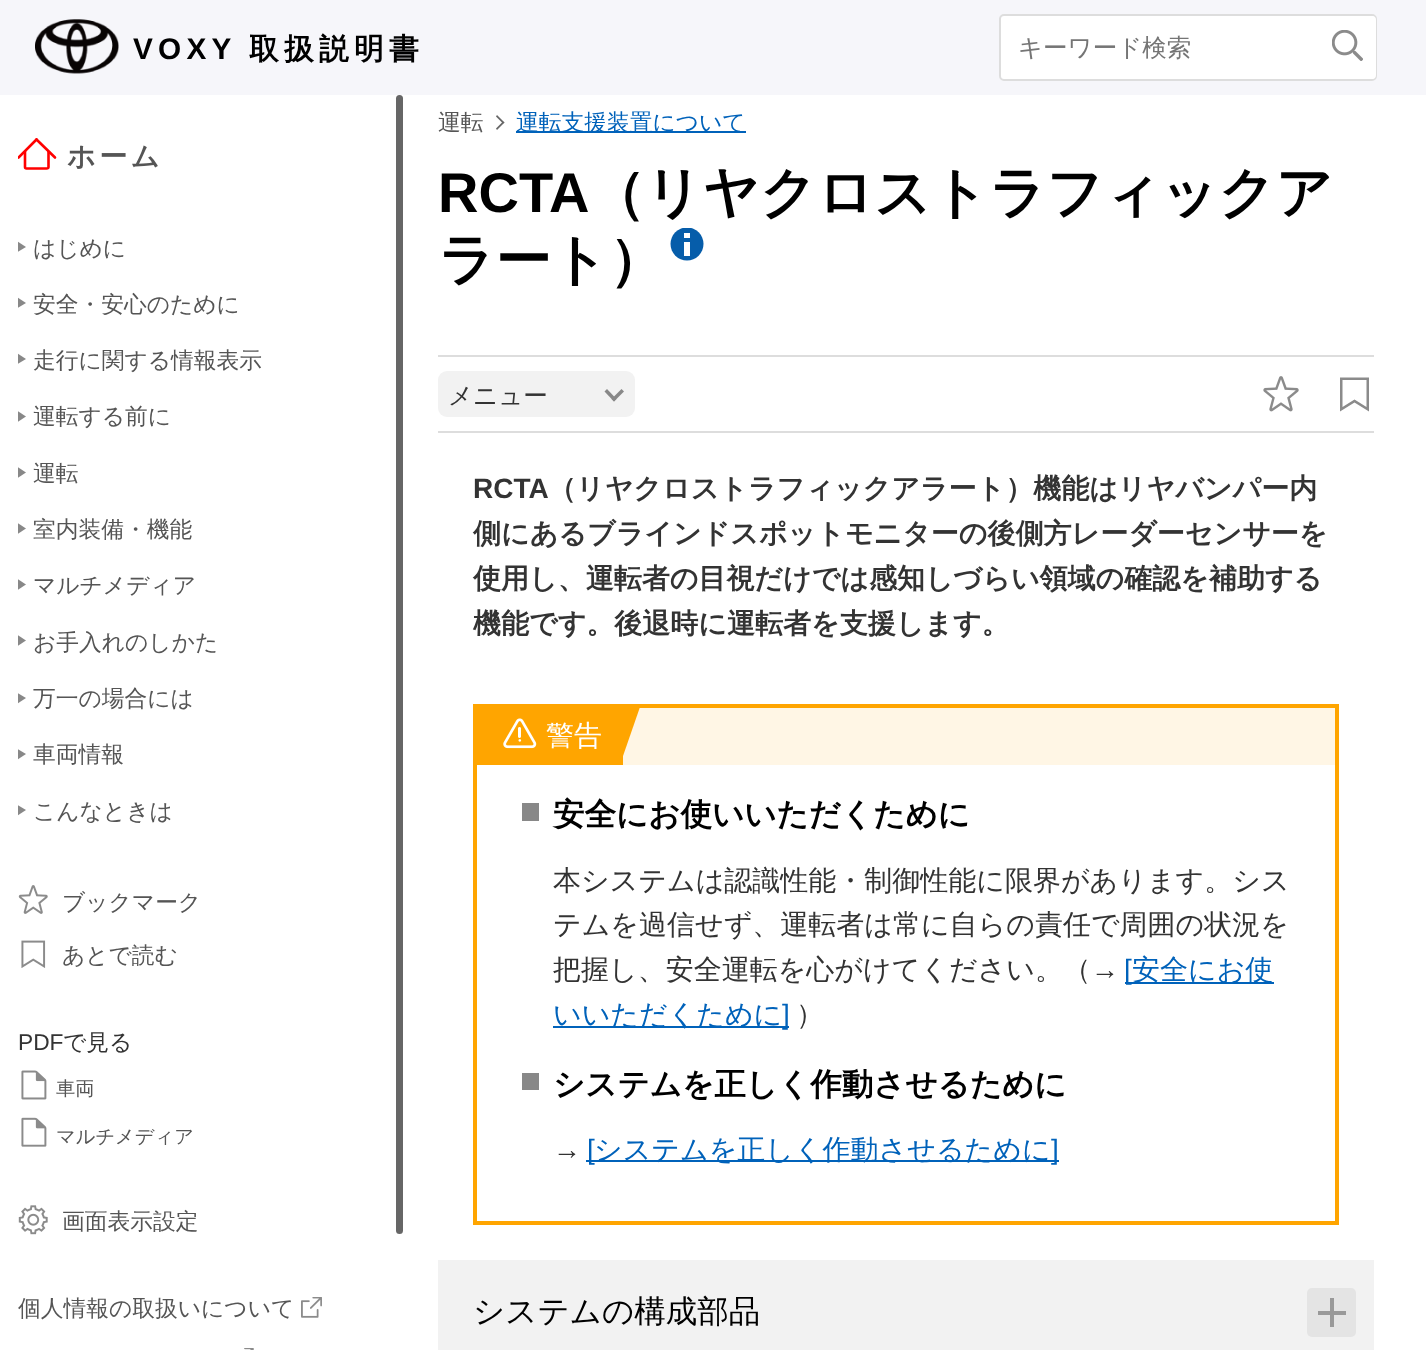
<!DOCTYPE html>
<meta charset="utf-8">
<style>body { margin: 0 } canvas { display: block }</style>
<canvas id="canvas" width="1426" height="1350"></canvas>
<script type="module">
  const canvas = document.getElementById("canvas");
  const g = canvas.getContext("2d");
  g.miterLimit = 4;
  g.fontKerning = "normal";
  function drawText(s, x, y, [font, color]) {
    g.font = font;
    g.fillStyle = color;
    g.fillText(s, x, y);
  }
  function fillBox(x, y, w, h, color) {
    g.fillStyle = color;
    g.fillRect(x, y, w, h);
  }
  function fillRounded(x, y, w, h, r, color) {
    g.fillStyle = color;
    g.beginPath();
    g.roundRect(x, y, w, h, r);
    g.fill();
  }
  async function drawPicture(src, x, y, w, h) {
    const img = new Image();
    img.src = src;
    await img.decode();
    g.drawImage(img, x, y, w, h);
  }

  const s1 = ["bold 29.75px Liberation Sans", "#000000"];
  const s2 = ["bold 29.75px WenQuanYi Zen Hei", "#000000"];
  const s3 = ["500 24.5px WenQuanYi Zen Hei", "#757575"];
  const s4 = ["bold 28px WenQuanYi Zen Hei", "#555555"];
  const s5 = ["500 22.75px WenQuanYi Zen Hei", "#555555"];
  const s6 = ["22.75px Liberation Sans", "#333333"];
  const s7 = ["500 22.75px WenQuanYi Zen Hei", "#333333"];
  const s8 = ["500 19.25px WenQuanYi Zen Hei", "#555555"];
  const s9 = ["500 22.75px WenQuanYi Zen Hei", "#0062BA"];
  const s10 = ["bold 56px Liberation Sans", "#000000"];
  const s11 = ["bold 56px WenQuanYi Zen Hei", "#000000"];
  const s12 = ["500 24.5px WenQuanYi Zen Hei", "#333333"];
  const s13 = ["bold 28px Liberation Sans", "#333333"];
  const s14 = ["bold 28px WenQuanYi Zen Hei", "#333333"];
  const s15 = ["500 28px WenQuanYi Zen Hei", "#FFFFFF"];
  const s16 = ["bold 31.5px WenQuanYi Zen Hei", "#000000"];
  const s17 = ["500 28px WenQuanYi Zen Hei", "#333333"];
  const s18 = ["28px Liberation Sans", "#333333"];
  const s19 = ["28px Liberation Sans", "#0062BA"];
  const s20 = ["500 28px WenQuanYi Zen Hei", "#0062BA"];
  const s21 = ["500 31.5px WenQuanYi Zen Hei", "#000000"];

  fillBox(0, 0, 1426, 1350, "#FFFFFF");
  fillBox(0, 0, 1426, 95, "#F6F6FA");
  await drawPicture("pic1.png", 35, 19, 84, 55);
  g.letterSpacing = "5.25px";
  drawText("VOXY", 133, 59, s1);
  drawText("取扱説明書", 249, 59, s2);
  g.beginPath();
  g.roundRect(1000, 15, 376, 65, 4);
  g.strokeStyle = "#DDDDDD";
  g.lineWidth = 2;
  g.stroke();
  fillRounded(1001, 16, 375, 63, 4, "#FFFFFF");
  g.letterSpacing = "0px";
  drawText("キーワード検索", 1018, 56, s3);
  await drawPicture("pic2.png", 1332, 30, 31, 31);
  g.save();
  g.beginPath();
  g.rect(18, 135, 38, 38);
  g.clip();
  g.beginPath();
  g.moveTo(18.5, 157.5);
  g.lineTo(36.5, 139.5);
  g.strokeStyle = "#FF0000";
  g.lineWidth = 2.6;
  g.lineCap = "round";
  g.stroke();
  g.restore();
  g.beginPath();
  g.moveTo(48.5, 151);
  g.lineTo(48.5, 167);
  g.bezierCurveTo(48.5, 168, 47.5, 168.5, 46.5, 168.5);
  g.lineTo(26.5, 168.5);
  g.bezierCurveTo(25.5, 168.5, 25, 168, 25, 167);
  g.lineTo(25, 151);
  g.strokeStyle = "#FF0000";
  g.lineWidth = 2.6;
  g.stroke();
  g.beginPath();
  g.moveTo(36.5, 139.5);
  g.lineTo(55, 157.5);
  g.lineCap = "round";
  g.stroke();
  g.letterSpacing = "3.5px";
  drawText("ホーム", 67, 166, s4);
  g.save();
  g.beginPath();
  g.rect(18, 95, 385, 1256);
  g.clip();
  g.fillStyle = "#888888";
  g.beginPath();
  g.moveTo(17.5, 252);
  g.lineTo(17.5, 241.5);
  g.lineTo(26, 247);
  g.closePath();
  g.fill();
  g.restore();
  g.letterSpacing = "0px";
  drawText("はじめに", 33, 256, s5);
  g.save();
  g.beginPath();
  g.rect(18, 95, 385, 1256);
  g.clip();
  g.fillStyle = "#888888";
  g.beginPath();
  g.moveTo(17.5, 308);
  g.lineTo(17.5, 297.5);
  g.lineTo(26, 303);
  g.closePath();
  g.fill();
  g.restore();
  drawText("安全・安心のために", 33, 312, s5);
  g.save();
  g.beginPath();
  g.rect(18, 95, 385, 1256);
  g.clip();
  g.fillStyle = "#888888";
  g.beginPath();
  g.moveTo(17.5, 364);
  g.lineTo(17.5, 353.5);
  g.lineTo(26, 359);
  g.closePath();
  g.fill();
  g.restore();
  drawText("走行に関する情報表示", 33, 368, s5);
  g.save();
  g.beginPath();
  g.rect(18, 95, 385, 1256);
  g.clip();
  g.fillStyle = "#888888";
  g.beginPath();
  g.moveTo(17.5, 422);
  g.lineTo(17.5, 411);
  g.lineTo(26, 416.5);
  g.closePath();
  g.fill();
  g.restore();
  drawText("運転する前に", 33, 424, s5);
  g.save();
  g.beginPath();
  g.rect(18, 95, 385, 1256);
  g.clip();
  g.fillStyle = "#888888";
  g.beginPath();
  g.moveTo(17.5, 478);
  g.lineTo(17.5, 467);
  g.lineTo(26, 472.5);
  g.closePath();
  g.fill();
  g.restore();
  drawText("運転", 33, 481, s5);
  g.save();
  g.beginPath();
  g.rect(18, 95, 385, 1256);
  g.clip();
  g.fillStyle = "#888888";
  g.beginPath();
  g.moveTo(17.5, 534);
  g.lineTo(17.5, 523);
  g.lineTo(26, 528.5);
  g.closePath();
  g.fill();
  g.restore();
  drawText("室内装備・機能", 33, 537, s5);
  g.save();
  g.beginPath();
  g.rect(18, 95, 385, 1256);
  g.clip();
  g.fillStyle = "#888888";
  g.beginPath();
  g.moveTo(17.5, 590);
  g.lineTo(17.5, 579);
  g.lineTo(26, 584.5);
  g.closePath();
  g.fill();
  g.restore();
  drawText("マルチメディア", 33, 593, s5);
  g.save();
  g.beginPath();
  g.rect(18, 95, 385, 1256);
  g.clip();
  g.fillStyle = "#888888";
  g.beginPath();
  g.moveTo(17.5, 646);
  g.lineTo(17.5, 635);
  g.lineTo(26, 640.5);
  g.closePath();
  g.fill();
  g.restore();
  drawText("お手入れのしかた", 33, 650, s5);
  g.save();
  g.beginPath();
  g.rect(18, 95, 385, 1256);
  g.clip();
  g.fillStyle = "#888888";
  g.beginPath();
  g.moveTo(17.5, 703.5);
  g.lineTo(17.5, 693);
  g.lineTo(26, 698);
  g.closePath();
  g.fill();
  g.restore();
  drawText("万一の場合には", 33, 706, s5);
  g.save();
  g.beginPath();
  g.rect(18, 95, 385, 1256);
  g.clip();
  g.fillStyle = "#888888";
  g.beginPath();
  g.moveTo(17.5, 759.5);
  g.lineTo(17.5, 749);
  g.lineTo(26, 754);
  g.closePath();
  g.fill();
  g.restore();
  drawText("車両情報", 33, 762, s5);
  g.save();
  g.beginPath();
  g.rect(18, 95, 385, 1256);
  g.clip();
  g.fillStyle = "#888888";
  g.beginPath();
  g.moveTo(17.5, 815.5);
  g.lineTo(17.5, 805);
  g.lineTo(26, 810);
  g.closePath();
  g.fill();
  g.restore();
  drawText("こんなときは", 33, 819, s5);
  await drawPicture("pic3.png", 18, 885, 30, 29);
  drawText("ブックマーク", 62, 910, s5);
  await drawPicture("pic4.png", 21, 940, 25, 28);
  drawText("あとで読む", 62, 963, s5);
  drawText("PDF", 18, 1050, s6);
  drawText("で見る", 63, 1050, s7);
  await drawPicture("pic5.png", 21, 1070, 26, 30);
  drawText("車両", 56, 1095, s8);
  await drawPicture("pic6.png", 21, 1117, 26, 30);
  drawText("マルチメディア", 56, 1143, s8);
  await drawPicture("pic7.png", 18, 1205, 30, 30);
  drawText("画面表示設定", 62, 1229, s5);
  drawText("個人情報の取扱いについて", 18, 1316, s5);
  await drawPicture("pic8.png", 301, 1297, 21, 21);
  await drawPicture("pic9.png", 244, 1348, 10, 2);
  fillRounded(396, 95, 7, 1139, 3.5, "#666666");
  drawText("運転", 438, 130, s5);
  g.fillStyle = "#666666";
  g.beginPath();
  g.moveTo(497, 115);
  g.lineTo(504.5, 122.5);
  g.lineTo(503, 123.5);
  g.lineTo(496, 116.5);
  g.closePath();
  g.fill();
  g.beginPath();
  g.moveTo(503, 121.5);
  g.lineTo(504.5, 122.5);
  g.lineTo(497, 130);
  g.lineTo(496, 128.5);
  g.closePath();
  g.fill();
  fillBox(516, 131, 230, 2, "#0062BA");
  drawText("運転支援装置について", 516, 130, s9);
  drawText("RCTA", 438, 212, s10);
  drawText("（リヤクロストラフィックア", 589, 212, s11);
  g.save();
  g.beginPath();
  g.rect(665, 228, 44, 33);
  g.clip();
  g.fillStyle = "#065DAA";
  g.beginPath();
  g.arc(687, 244, 16.5, 0, Math.PI * 2);
  g.fill();
  g.restore();
  fillBox(684, 233, 6, 5, "#FFFFFF");
  drawText("ラート）", 438, 279, s11);
  fillBox(684, 242, 6, 14, "#FFFFFF");
  fillBox(438, 355, 936, 2, "#DDDDDD");
  fillBox(438, 431, 936, 2, "#DDDDDD");
  fillRounded(438, 371, 197, 46, 9, "#F2F2F2");
  drawText("メニュー", 448, 404, s12);
  g.fillStyle = "#888888";
  g.beginPath();
  g.moveTo(624, 391.5);
  g.lineTo(614, 401.5);
  g.lineTo(611.5, 399);
  g.lineTo(621.5, 389);
  g.closePath();
  g.fill();
  g.beginPath();
  g.moveTo(616.5, 399);
  g.lineTo(614, 401.5);
  g.lineTo(604.5, 391.5);
  g.lineTo(607, 389);
  g.closePath();
  g.fill();
  await drawPicture("pic10.png", 1263, 376, 36, 36);
  g.fillStyle = "#8B8B8B";
  g.beginPath();
  g.moveTo(1366.5, 380);
  g.lineTo(1366.5, 407);
  g.lineTo(1354.5, 399.5);
  g.lineTo(1342.5, 407);
  g.lineTo(1342.5, 380);
  g.lineTo(1366.5, 380);
  g.moveTo(1369, 377.5);
  g.lineTo(1340, 377.5);
  g.lineTo(1340, 411.5);
  g.lineTo(1354.5, 402.5);
  g.lineTo(1369, 411.5);
  g.closePath();
  g.fill();
  drawText("RCTA", 473, 498, s13);
  drawText("（リヤクロストラフィックアラート）機能はリヤバンパー内", 548, 498, s14);
  drawText("側にあるブラインドスポットモニターの後側方レーダーセンサーを", 473, 543, s14);
  drawText("使用し、運転者の目視だけでは感知しづらい領域の確認を補助する", 473, 588, s14);
  drawText("機能です。後退時に運転者を支援します。", 473, 633, s14);
  g.strokeStyle = "#FFA500";
  g.lineWidth = 4;
  g.strokeRect(475, 706, 862, 517);
  fillBox(623, 708, 712, 57, "rgba(255, 165, 0, 0.1)");
  fillBox(477, 708, 146, 57, "#FFA500");
  await drawPicture("pic11.png", 503, 718, 34, 31);
  drawText("警告", 546, 745, s15);
  g.fillStyle = "#FFA500";
  g.beginPath();
  g.moveTo(623, 707);
  g.lineTo(640, 707);
  g.lineTo(623, 756);
  g.closePath();
  g.fill();
  fillBox(522, 803, 17, 18, "#888888");
  drawText("安全にお使いいただくために", 553, 825, s16);
  drawText("本システムは認識性能・制御性能に限界があります。シス", 553, 890, s17);
  drawText("テムを過信せず、運転者は常に自らの責任で周囲の状況を", 553, 934, s17);
  drawText("把握し、安全運転を心がけてください。（", 553, 979, s17);
  drawText("→", 1091, 979, s18);
  fillBox(1125, 982, 7, 2, "#0062BA");
  drawText("[", 1124, 979, s19);
  fillBox(1132, 982, 142, 2, "#0062BA");
  drawText("安全にお使", 1132, 979, s20);
  fillBox(553, 1026, 236, 2, "#0062BA");
  drawText("いいただくために", 553, 1024, s20);
  drawText("]", 782, 1024, s19);
  drawText("）", 796, 1024, s17);
  fillBox(522, 1073, 17, 17, "#888888");
  drawText("システムを正しく作動させるために", 553, 1095, s16);
  drawText("→", 553, 1159, s18);
  fillBox(586, 1160, 473, 2, "#0062BA");
  drawText("[", 587, 1159, s19);
  drawText("システムを正しく作動させるために", 594, 1159, s20);
  drawText("]", 1051, 1159, s19);
  fillBox(438, 1260, 936, 90, "#F2F2F2");
  drawText("システムの構成部品", 473, 1322, s21);
  fillRounded(1307, 1288, 49, 49, 5, "#E4E4E4");
  fillBox(1318, 1311, 28, 4, "#999999");
  fillBox(1330, 1298, 4, 29, "#999999");
</script>
